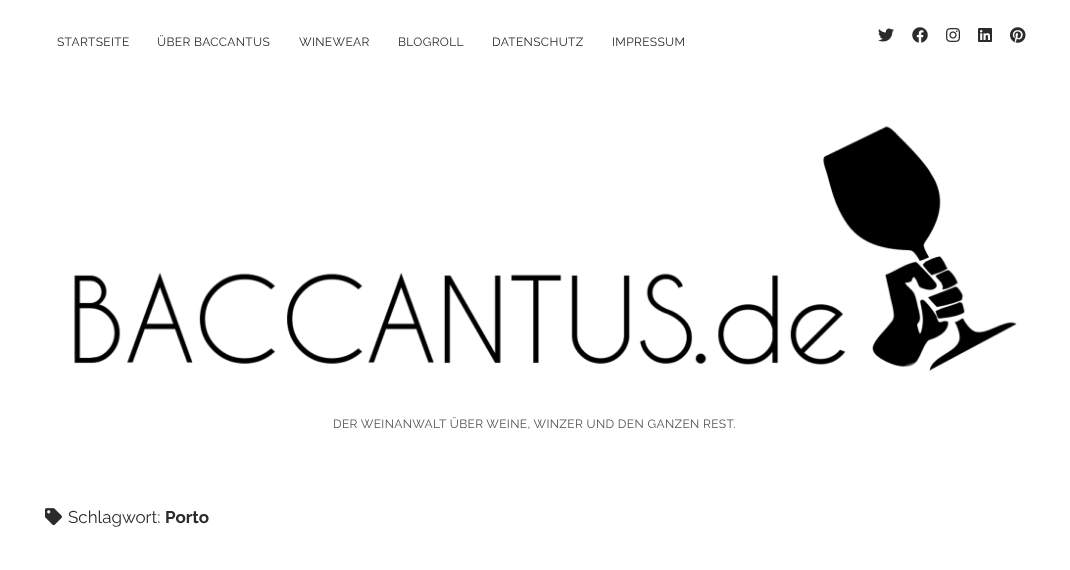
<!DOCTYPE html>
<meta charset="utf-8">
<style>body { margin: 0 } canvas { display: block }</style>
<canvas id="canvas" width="1070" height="570"></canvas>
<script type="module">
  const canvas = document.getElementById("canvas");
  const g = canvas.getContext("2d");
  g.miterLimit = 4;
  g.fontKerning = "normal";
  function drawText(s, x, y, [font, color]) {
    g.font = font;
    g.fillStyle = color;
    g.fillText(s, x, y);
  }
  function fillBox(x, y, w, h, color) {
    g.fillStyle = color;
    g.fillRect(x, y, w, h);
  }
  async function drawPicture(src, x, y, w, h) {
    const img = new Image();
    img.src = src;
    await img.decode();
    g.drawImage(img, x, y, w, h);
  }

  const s1 = ["12px Raleway", "#2B2B2B"];
  const s2 = ["12px Raleway", "#545454"];
  const s3 = ["17px Raleway", "#2B2B2B"];
  const s4 = ["bold 17px Raleway", "#2B2B2B"];

  fillBox(0, 0, 1070, 570, "#FFFFFF");
  g.letterSpacing = "0.35px";
  drawText("STARTSEITE", 57, 46, s1);
  drawText("ÜBER BACCANTUS", 157, 46, s1);
  drawText("WINEWEAR", 299, 46, s1);
  drawText("BLOGROLL", 398, 46, s1);
  drawText("DATENSCHUTZ", 492, 46, s1);
  drawText("IMPRESSUM", 612, 46, s1);
  await drawPicture("pic1.png", 878, 28, 16, 14);
  await drawPicture("pic2.png", 912, 27, 16, 16);
  await drawPicture("pic3.png", 946, 28, 15, 14);
  await drawPicture("pic4.png", 978, 28, 14, 14);
  await drawPicture("pic5.png", 1010, 27, 16, 16);
  await drawPicture("pic6.png", 74, 126, 943, 245);
  drawText("DER WEINANWALT ÜBER WEINE, WINZER UND DEN GANZEN REST.", 333, 428, s2);
  await drawPicture("pic7.png", 45, 508, 17, 18);
  g.letterSpacing = "0px";
  drawText("Schlagwort:", 68, 523, s3);
  drawText("Porto", 165, 523, s4);
</script>
